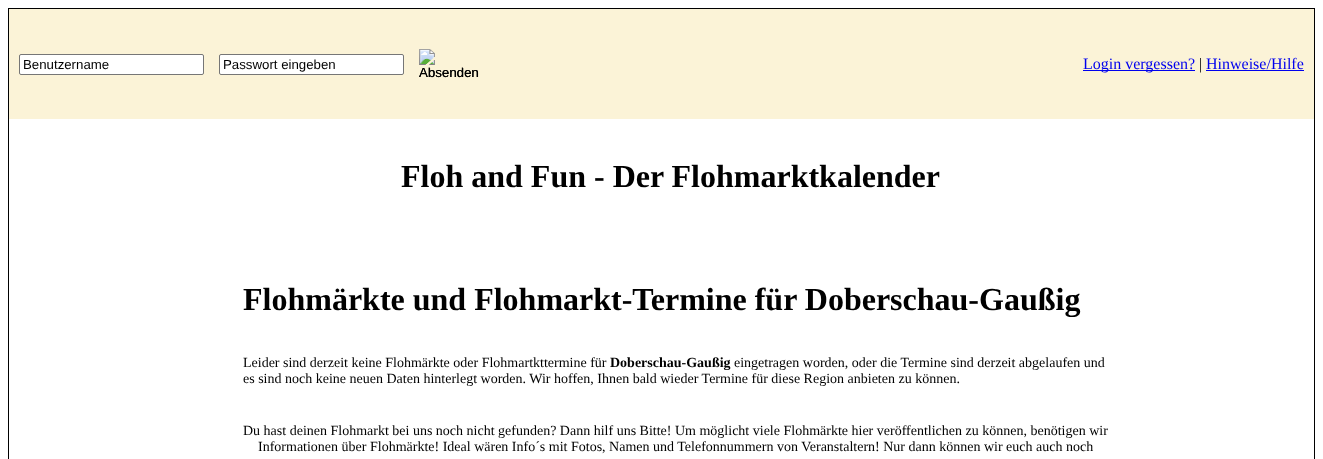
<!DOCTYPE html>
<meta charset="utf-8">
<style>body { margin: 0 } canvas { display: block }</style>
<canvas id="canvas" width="1323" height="459"></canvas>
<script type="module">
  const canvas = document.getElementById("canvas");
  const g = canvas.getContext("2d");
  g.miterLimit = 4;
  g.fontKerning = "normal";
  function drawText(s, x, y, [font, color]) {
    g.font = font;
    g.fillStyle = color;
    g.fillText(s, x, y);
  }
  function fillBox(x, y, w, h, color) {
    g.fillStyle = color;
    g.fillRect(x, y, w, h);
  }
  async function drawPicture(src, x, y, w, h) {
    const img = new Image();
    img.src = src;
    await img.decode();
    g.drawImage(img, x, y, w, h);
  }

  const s1 = ["13.25px Liberation Sans", "#000000"];
  const s2 = ["16px Liberation Serif", "#0000EE"];
  const s3 = ["16px Liberation Serif", "#000000"];
  const s4 = ["bold 32px Liberation Serif", "#000000"];
  const s5 = ["14px Liberation Serif", "#000000"];
  const s6 = ["bold 14px Liberation Serif", "#000000"];

  fillBox(0, 0, 1323, 459, "#FFFFFF");
  fillBox(8, 8, 1307, 1, "#000000");
  fillBox(1314, 8, 1, 451, "#000000");
  fillBox(8, 8, 1, 451, "#000000");
  fillBox(9, 9, 1305, 110, "#FBF3D7");
  g.fillStyle = "#FFFFFF";
  g.beginPath();
  g.roundRect(19.5, 54.5, 184, 20, 1.5);
  g.fill();
  g.strokeStyle = "#767676";
  g.stroke();
  drawText("Benutzername", 23, 69, s1);
  g.fillStyle = "#FFFFFF";
  g.beginPath();
  g.roundRect(219.5, 54.5, 184, 20, 1.5);
  g.fill();
  g.stroke();
  drawText("Passwort eingeben", 223, 69, s1);
  await drawPicture("pic1.png", 419, 49, 60, 28);
  drawText("Absenden", 419, 77, s1);
  fillBox(1083, 70, 112, 1, "#0000EE");
  drawText("Login vergessen?", 1083, 69, s2);
  drawText("|", 1199, 69, s3);
  drawText("Hinweise/Hilfe", 1206, 69, s2);
  fillBox(1206, 70, 98, 1, "#0000EE");
  drawText("Floh and Fun - Der Flohmarktkalender", 401, 187, s4);
  drawText("Flohmärkte und Flohmarkt-Termine für Doberschau-Gaußig", 243, 310, s4);
  drawText("Leider sind derzeit keine Flohmärkte oder Flohmartkttermine für", 243, 367, s5);
  drawText("Doberschau-Gaußig", 610, 367, s6);
  drawText("eingetragen worden, oder die Termine sind derzeit abgelaufen und", 734, 367, s5);
  drawText("es sind noch keine neuen Daten hinterlegt worden. Wir hoffen, Ihnen bald wieder Termine für diese Region anbieten zu können.", 243, 383, s5);
  drawText("Du hast deinen Flohmarkt bei uns noch nicht gefunden? Dann hilf uns Bitte! Um möglicht viele Flohmärkte hier veröffentlichen zu können, benötigen wir", 243, 435, s5);
  drawText("Informationen über Flohmärkte! Ideal wären Info´s mit Fotos, Namen und Telefonnummern von Veranstaltern! Nur dann können wir euch auch noch", 258, 451, s5);
</script>
